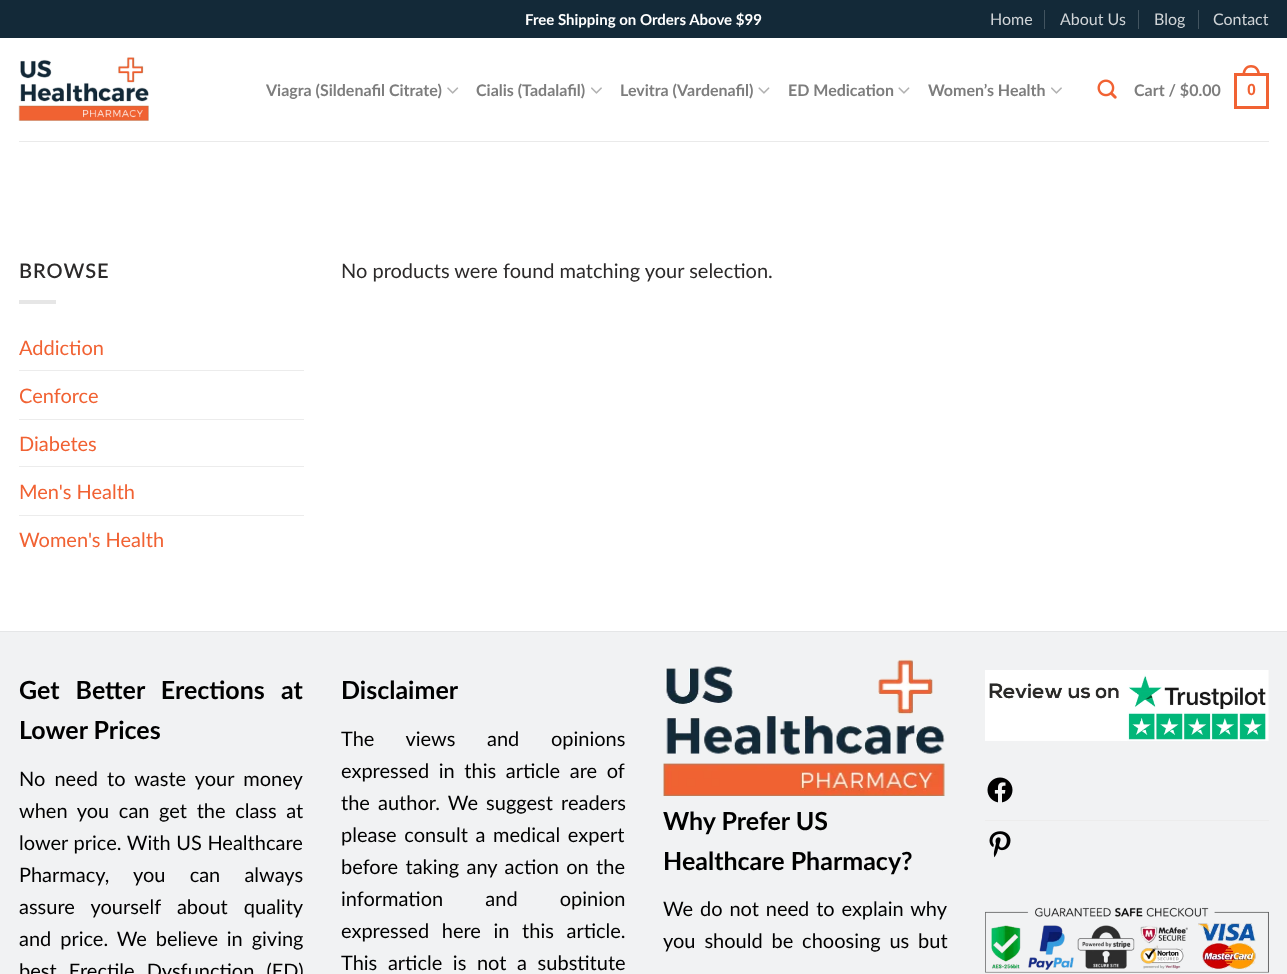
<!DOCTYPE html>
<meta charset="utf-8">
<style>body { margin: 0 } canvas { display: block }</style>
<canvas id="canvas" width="1287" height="974"></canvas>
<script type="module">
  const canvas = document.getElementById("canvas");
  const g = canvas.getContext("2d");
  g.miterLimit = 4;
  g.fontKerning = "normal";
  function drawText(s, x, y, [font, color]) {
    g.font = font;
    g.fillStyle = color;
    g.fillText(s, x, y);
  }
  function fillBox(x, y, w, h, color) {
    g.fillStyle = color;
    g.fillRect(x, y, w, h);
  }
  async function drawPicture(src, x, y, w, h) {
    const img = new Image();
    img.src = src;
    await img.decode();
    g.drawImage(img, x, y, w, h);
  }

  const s1 = ["bold 15px Lato", "#FFFFFF"];
  const s2 = ["16px Lato", "#D0D4D7"];
  const s3 = ["bold 16px Lato", "#7D7D7D"];
  const s4 = ["bold 16px Liberation Sans", "#F16233"];
  const s5 = ["600 20px Lato", "#2C2A2A"];
  const s6 = ["20px Lato", "#F16233"];
  const s7 = ["20px Lato", "#2C2A2A"];
  const s8 = ["bold 25px Lato", "#000000"];
  const s9 = ["20px Lato", "#000000"];

  fillBox(0, 0, 1287, 974, "#FFFFFF");
  fillBox(0, 0, 1287, 38, "#132938");
  drawText("Free Shipping on Orders Above $99", 525, 25, s1);
  drawText("Home", 990, 25, s2);
  fillBox(1044, 10, 1, 19, "#425460");
  drawText("About Us", 1060, 25, s2);
  fillBox(1138, 10, 1, 19, "#425460");
  drawText("Blog", 1154, 25, s2);
  fillBox(1198, 10, 1, 19, "#425460");
  drawText("Contact", 1213, 25, s2);
  await drawPicture("pic1.png", 18, 57, 131, 64);
  drawText("Viagra (Sildenafil Citrate)", 266, 96, s3);
  await drawPicture("pic2.png", 447, 87, 12, 7);
  drawText("Cialis (Tadalafil)", 476, 96, s3);
  await drawPicture("pic3.png", 591, 87, 11, 7);
  drawText("Levitra (Vardenafil)", 620, 96, s3);
  await drawPicture("pic4.png", 758, 87, 12, 7);
  drawText("ED Medication", 788, 96, s3);
  await drawPicture("pic4.png", 898, 87, 12, 7);
  drawText("Women’s Health", 928, 96, s3);
  await drawPicture("pic3.png", 1051, 87, 11, 7);
  await drawPicture("pic5.png", 1097, 79, 20, 20);
  drawText("Cart / $0.00", 1134, 96, s3);
  g.strokeStyle = "#F16233";
  g.lineWidth = 3;
  g.strokeRect(1235.5, 74.5, 32, 33);
  g.fillStyle = "#F16233";
  g.beginPath();
  g.moveTo(1251, 65);
  g.bezierCurveTo(1257, 65, 1260, 69.5, 1260, 75);
  g.lineTo(1242.5, 75);
  g.bezierCurveTo(1242.5, 69.5, 1245.5, 65, 1251, 65);
  g.closePath();
  g.moveTo(1251, 67.5);
  g.bezierCurveTo(1255.5, 67.5, 1257.5, 71, 1257.5, 75);
  g.lineTo(1245, 75);
  g.bezierCurveTo(1245, 71, 1247, 67.5, 1251, 67.5);
  g.closePath();
  g.fill("evenodd");
  drawText("0", 1247, 95, s4);
  fillBox(19, 141, 1250, 1, "#EAEAEA");
  g.letterSpacing = "1px";
  drawText("BROWSE", 19, 278, s5);
  fillBox(19, 300, 37, 4, "#E6E6E6");
  g.letterSpacing = "0px";
  drawText("Addiction", 19, 355, s6);
  fillBox(19, 370, 285, 1, "#ECECEC");
  drawText("Cenforce", 19, 403, s6);
  fillBox(19, 419, 285, 1, "#ECECEC");
  drawText("Diabetes", 19, 451, s6);
  fillBox(19, 466, 285, 1, "#ECECEC");
  drawText("Men's Health", 19, 499, s6);
  fillBox(19, 515, 285, 1, "#ECECEC");
  drawText("Women's Health", 19, 547, s6);
  drawText("No products were found matching your selection.", 341, 278, s7);
  fillBox(0, 632, 1287, 342, "#F1F2F3");
  fillBox(0, 631, 1287, 1, "#E5E6E7");
  g.wordSpacing = "10px";
  drawText("Get Better Erections at", 19, 699, s8);
  g.wordSpacing = "0px";
  drawText("Lower Prices", 19, 739, s8);
  g.wordSpacing = "4px";
  drawText("No need to waste your money", 19, 786, s9);
  g.wordSpacing = "4.5px";
  drawText("when you can get the class at", 19, 818, s9);
  g.wordSpacing = "0.5px";
  drawText("lower price. With US Healthcare", 19, 850, s9);
  g.wordSpacing = "19px";
  drawText("Pharmacy, you can always", 19, 882, s9);
  g.wordSpacing = "11px";
  drawText("assure yourself about quality", 19, 914, s9);
  g.wordSpacing = "3.75px";
  drawText("and price. We believe in giving", 19, 946, s9);
  g.wordSpacing = "7px";
  drawText("best Erectile Dysfunction (ED)", 19, 978, s9);
  g.wordSpacing = "0px";
  drawText("Disclaimer", 341, 699, s8);
  g.wordSpacing = "26.5px";
  drawText("The views and opinions", 341, 746, s9);
  g.wordSpacing = "4.5px";
  drawText("expressed in this article are of", 341, 778, s9);
  g.wordSpacing = "3px";
  drawText("the author. We suggest readers", 341, 810, s9);
  g.wordSpacing = "2.5px";
  drawText("please consult a medical expert", 341, 842, s9);
  g.wordSpacing = "2.25px";
  drawText("before taking any action on the", 341, 874, s9);
  g.wordSpacing = "37px";
  drawText("information and opinion", 341, 906, s9);
  g.wordSpacing = "7.5px";
  drawText("expressed here in this article.", 341, 938, s9);
  g.wordSpacing = "5.5px";
  drawText("This article is not a substitute", 341, 970, s9);
  await drawPicture("pic6.png", 663, 659, 282, 137);
  g.wordSpacing = "0px";
  drawText("Why Prefer US", 663, 830, s8);
  drawText("Healthcare Pharmacy?", 663, 870, s8);
  g.wordSpacing = "1.75px";
  drawText("We do not need to explain why", 663, 916, s9);
  g.wordSpacing = "3.75px";
  drawText("you should be choosing us but", 663, 948, s9);
  await drawPicture("pic7.png", 985, 670, 284, 71);
  await drawPicture("pic8.png", 987, 777, 26, 26);
  fillBox(985, 820, 284, 1, "#ECECEC");
  await drawPicture("pic9.png", 989, 831, 22, 27);
  await drawPicture("pic10.png", 985, 907, 284, 66);
</script>
